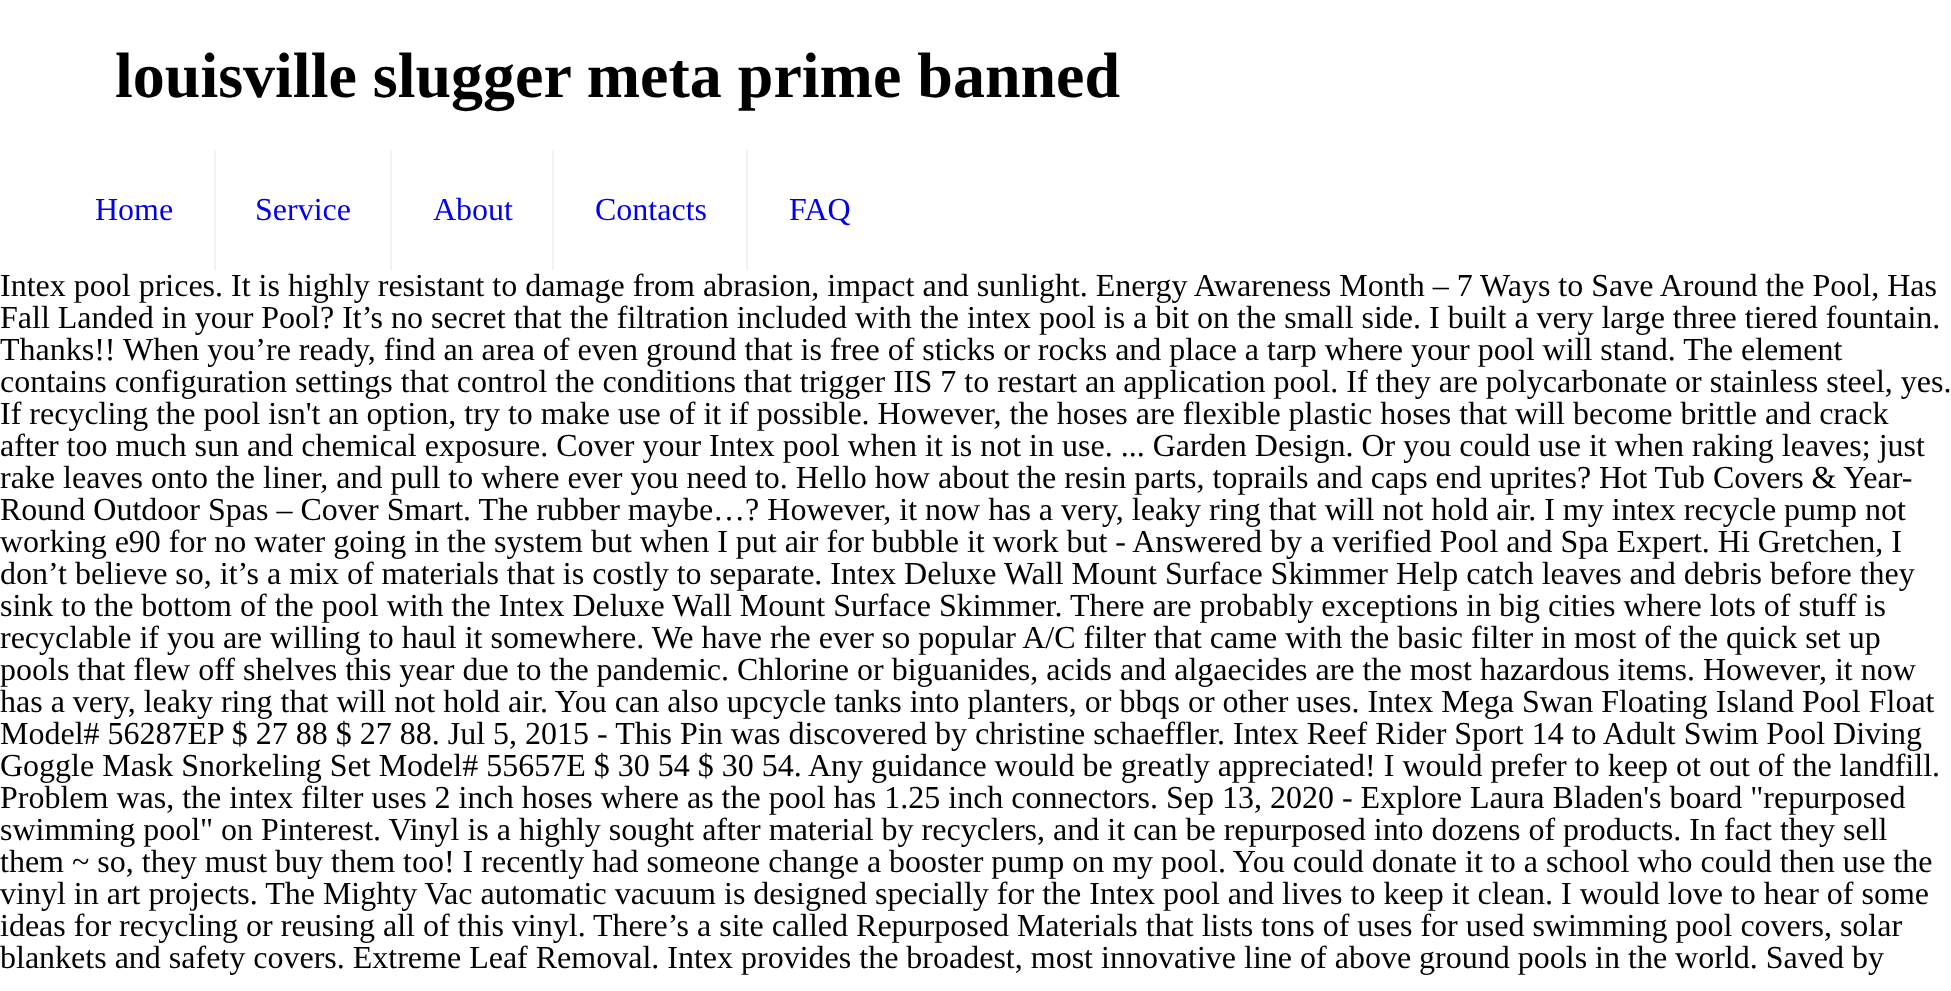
<!DOCTYPE html>
<meta charset="utf-8">
<style>body { margin: 0 } canvas { display: block }</style>
<canvas id="canvas" width="1951" height="991"></canvas>
<script type="module">
  const canvas = document.getElementById("canvas");
  const g = canvas.getContext("2d");
  g.miterLimit = 4;
  g.fontKerning = "normal";
  function drawText(s, x, y, [font, color]) {
    g.font = font;
    g.fillStyle = color;
    g.fillText(s, x, y);
  }
  function fillBox(x, y, w, h, color) {
    g.fillStyle = color;
    g.fillRect(x, y, w, h);
  }

  const s1 = ["bold 64px Liberation Serif", "#000000"];
  const s2 = ["32px Liberation Serif", "#0000EE"];
  const s3 = ["32px Liberation Serif", "#000000"];

  fillBox(0, 0, 1951, 991, "#FFFFFF");
  drawText("louisville slugger meta prime banned", 115, 97, s1);
  fillBox(214, 150, 2, 120, "#F2F2F2");
  drawText("Home", 95, 220, s2);
  fillBox(390, 150, 2, 120, "#F2F2F2");
  drawText("Service", 255, 220, s2);
  fillBox(552, 150, 2, 120, "#F2F2F2");
  drawText("About", 433, 220, s2);
  fillBox(746, 150, 2, 120, "#F2F2F2");
  drawText("Contacts", 595, 220, s2);
  drawText("FAQ", 789, 220, s2);
  drawText("Intex pool prices. It is highly resistant to damage from abrasion, impact and sunlight. Energy Awareness Month – 7 Ways to Save Around the Pool, Has", 0, 296, s3);
  drawText("Fall Landed in your Pool? It’s no secret that the filtration included with the intex pool is a bit on the small side. I built a very large three tiered fountain.", 0, 328, s3);
  drawText("Thanks!! When you’re ready, find an area of even ground that is free of sticks or rocks and place a tarp where your pool will stand. The element", 0, 360, s3);
  drawText("contains configuration settings that control the conditions that trigger IIS 7 to restart an application pool. If they are polycarbonate or stainless steel, yes.", 0, 392, s3);
  drawText("If recycling the pool isn't an option, try to make use of it if possible. However, the hoses are flexible plastic hoses that will become brittle and crack", 0, 424, s3);
  drawText("after too much sun and chemical exposure. Cover your Intex pool when it is not in use. ... Garden Design. Or you could use it when raking leaves; just", 0, 456, s3);
  drawText("rake leaves onto the liner, and pull to where ever you need to. Hello how about the resin parts, toprails and caps end uprites? Hot Tub Covers & Year-", 0, 488, s3);
  drawText("Round Outdoor Spas – Cover Smart. The rubber maybe…? However, it now has a very, leaky ring that will not hold air. I my intex recycle pump not", 0, 520, s3);
  drawText("working e90 for no water going in the system but when I put air for bubble it work but - Answered by a verified Pool and Spa Expert. Hi Gretchen, I", 0, 552, s3);
  drawText("don’t believe so, it’s a mix of materials that is costly to separate. Intex Deluxe Wall Mount Surface Skimmer Help catch leaves and debris before they", 0, 584, s3);
  drawText("sink to the bottom of the pool with the Intex Deluxe Wall Mount Surface Skimmer. There are probably exceptions in big cities where lots of stuff is", 0, 616, s3);
  drawText("recyclable if you are willing to haul it somewhere. We have rhe ever so popular A/C filter that came with the basic filter in most of the quick set up", 0, 648, s3);
  drawText("pools that flew off shelves this year due to the pandemic. Chlorine or biguanides, acids and algaecides are the most hazardous items. However, it now", 0, 680, s3);
  drawText("has a very, leaky ring that will not hold air. You can also upcycle tanks into planters, or bbqs or other uses. Intex Mega Swan Floating Island Pool Float", 0, 712, s3);
  drawText("Model# 56287EP $ 27 88 $ 27 88. Jul 5, 2015 - This Pin was discovered by christine schaeffler. Intex Reef Rider Sport 14 to Adult Swim Pool Diving", 0, 744, s3);
  drawText("Goggle Mask Snorkeling Set Model# 55657E $ 30 54 $ 30 54. Any guidance would be greatly appreciated! I would prefer to keep ot out of the landfill.", 0, 776, s3);
  drawText("Problem was, the intex filter uses 2 inch hoses where as the pool has 1.25 inch connectors. Sep 13, 2020 - Explore Laura Bladen's board \"repurposed", 0, 808, s3);
  drawText("swimming pool\" on Pinterest. Vinyl is a highly sought after material by recyclers, and it can be repurposed into dozens of products. In fact they sell", 0, 840, s3);
  drawText("them ~ so, they must buy them too! I recently had someone change a booster pump on my pool. You could donate it to a school who could then use the", 0, 872, s3);
  drawText("vinyl in art projects. The Mighty Vac automatic vacuum is designed specially for the Intex pool and lives to keep it clean. I would love to hear of some", 0, 904, s3);
  drawText("ideas for recycling or reusing all of this vinyl. There’s a site called Repurposed Materials that lists tons of uses for used swimming pool covers, solar", 0, 936, s3);
  drawText("blankets and safety covers. Extreme Leaf Removal. Intex provides the broadest, most innovative line of above ground pools in the world. Saved by", 0, 968, s3);
</script>
